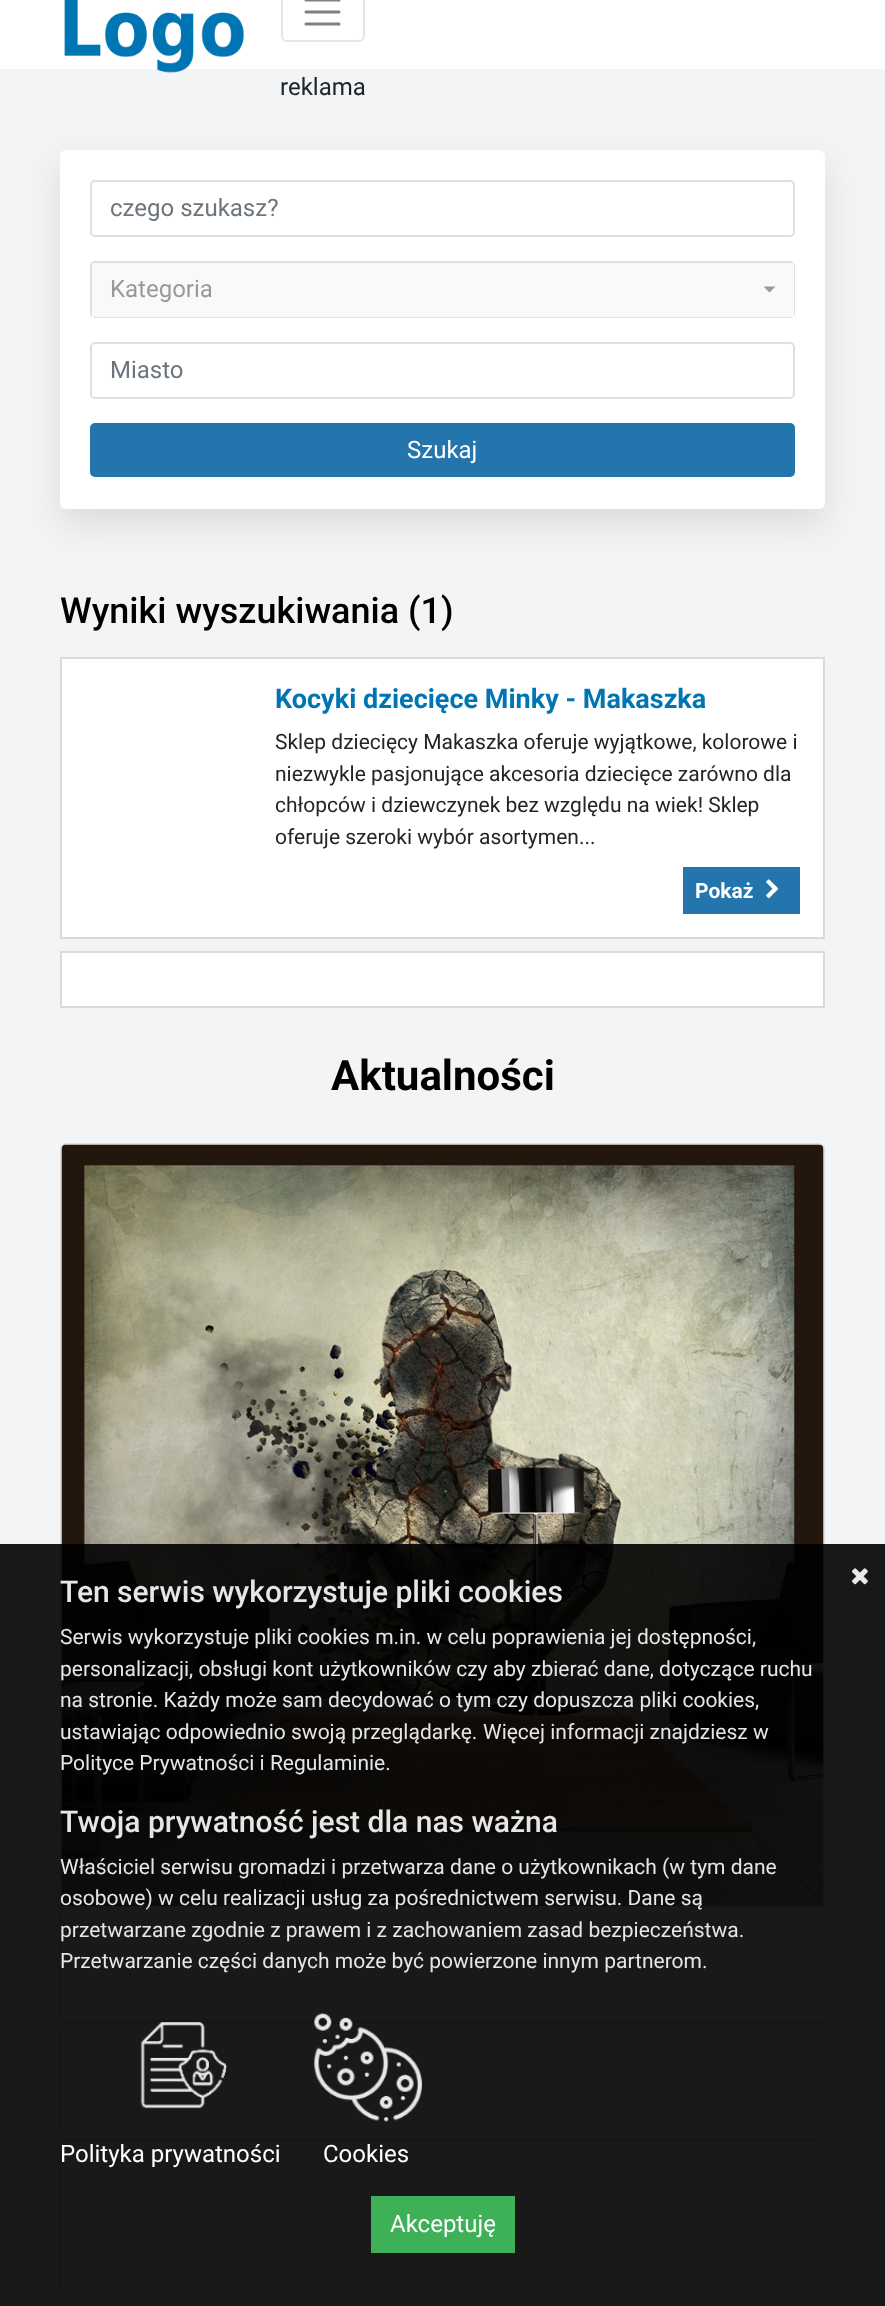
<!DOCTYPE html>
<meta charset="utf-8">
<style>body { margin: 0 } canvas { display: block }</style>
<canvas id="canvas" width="885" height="2306"></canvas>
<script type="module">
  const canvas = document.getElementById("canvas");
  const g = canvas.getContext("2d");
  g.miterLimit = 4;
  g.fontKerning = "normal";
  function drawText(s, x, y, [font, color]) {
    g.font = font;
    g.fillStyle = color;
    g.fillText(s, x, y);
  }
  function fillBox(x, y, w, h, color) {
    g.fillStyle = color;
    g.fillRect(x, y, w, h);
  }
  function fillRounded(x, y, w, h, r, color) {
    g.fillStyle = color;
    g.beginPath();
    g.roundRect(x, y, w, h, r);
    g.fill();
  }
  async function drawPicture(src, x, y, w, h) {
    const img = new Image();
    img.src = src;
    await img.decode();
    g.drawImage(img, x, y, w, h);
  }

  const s1 = ["24px Roboto", "#212529"];
  const s2 = ["24px Roboto", "#6C757D"];
  const s3 = ["24px Roboto", "#999999"];
  const s4 = ["24px Roboto", "#FFFFFF"];
  const s5 = ["500 36px Roboto", "#000000"];
  const s6 = ["bold 27px Roboto", "#0075B4"];
  const s7 = ["21px Roboto", "#212529"];
  const s8 = ["bold 21px Roboto", "#FFFFFF"];
  const s9 = ["bold 42px Roboto", "#000000"];
  const s10 = ["500 30px Roboto", "#E6E6E6"];
  const s11 = ["21px Roboto", "#E6E6E6"];

  fillBox(0, 0, 885, 2306, "#F2F4F5");
  fillBox(0, 0, 885, 69, "#FFFFFF");
  await drawPicture("pic1.png", 64, 0, 180, 73);
  g.beginPath();
  g.roundRect(282, -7, 82, 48, 5);
  g.strokeStyle = "#E6E6E6";
  g.lineWidth = 2;
  g.stroke();
  g.beginPath();
  g.moveTo(306, 0);
  g.lineTo(339, 0);
  g.moveTo(306, 12);
  g.lineTo(339, 12);
  g.moveTo(306, 24);
  g.lineTo(339, 24);
  g.strokeStyle = "#808080";
  g.lineWidth = 3;
  g.lineCap = "round";
  g.stroke();
  drawText("reklama", 280, 95, s1);
  g.fillStyle = "rgba(0, 0, 0, 0.1)";
  g.filter = "blur(18px)";
  g.beginPath();
  g.roundRect(60, 165, 765, 359, 6);
  g.fill();
  g.filter = "none";
  fillRounded(60, 150, 765, 359, 6, "#FFFFFF");
  g.beginPath();
  g.roundRect(91, 181, 703, 55, 4);
  g.strokeStyle = "#DDDFE2";
  g.lineWidth = 2;
  g.stroke();
  drawText("czego szukasz?", 110, 216, s2);
  g.beginPath();
  g.roundRect(91, 262, 703, 55, 4);
  g.stroke();
  fillBox(92, 263, 702, 54, "#F8F9FA");
  drawText("Kategoria", 110, 297, s3);
  g.beginPath();
  g.moveTo(763.5, 286.5);
  g.lineTo(775.5, 286.5);
  g.lineTo(769.5, 292.5);
  g.closePath();
  g.fill();
  g.beginPath();
  g.roundRect(91, 343, 703, 55, 4);
  g.stroke();
  drawText("Miasto", 110, 378, s2);
  fillRounded(90, 423, 705, 54, 5, "#2475AD");
  drawText("Szukaj", 407, 458, s4);
  drawText("Wyniki wyszukiwania (1)", 60, 623, s5);
  g.fillStyle = "#FFFFFF";
  g.beginPath();
  g.rect(61, 658, 763, 280);
  g.fill();
  g.strokeStyle = "#DADADA";
  g.stroke();
  drawText("Kocyki dziecięce Minky - Makaszka", 275, 708, s6);
  drawText("Sklep dziecięcy Makaszka oferuje wyjątkowe, kolorowe i", 275, 749, s7);
  drawText("niezwykle pasjonujące akcesoria dziecięce zarówno dla", 275, 781, s7);
  drawText("chłopców i dziewczynek bez względu na wiek! Sklep", 275, 812, s7);
  drawText("oferuje szeroki wybór asortymen...", 275, 844, s7);
  fillBox(683, 867, 117, 47, "#2475AD");
  drawText("Pokaż", 695, 898, s8);
  await drawPicture("pic2.png", 766, 879, 13, 20);
  g.beginPath();
  g.rect(61, 952, 763, 55);
  g.fill();
  g.stroke();
  drawText("Aktualności", 331, 1090, s9);
  fillRounded(60, 1143, 765, 879, 6, "#FFFFFF");
  g.beginPath();
  g.roundRect(61, 1144, 763, 877, 5);
  g.strokeStyle = "rgba(0, 0, 0, 0.12)";
  g.stroke();
  await drawPicture("pic3.png", 61, 1144, 763, 763);
  fillRounded(60, 2022, 765, 117, 6, "#FFFFFF");
  g.beginPath();
  g.roundRect(61, 2023, 763, 115, 5);
  g.stroke();
  fillRounded(60, 2139, 765, 153, 6, "#FFFFFF");
  g.beginPath();
  g.roundRect(61, 2140, 763, 151, 5);
  g.stroke();
  fillBox(0, 1544, 885, 762, "rgba(0, 0, 0, 0.9)");
  await drawPicture("pic4.png", 852, 1568, 16, 17);
  drawText("Ten serwis wykorzystuje pliki cookies", 60, 1602, s10);
  drawText("Serwis wykorzystuje pliki cookies m.in. w celu poprawienia jej dostępności,", 60, 1644, s11);
  drawText("personalizacji, obsługi kont użytkowników czy aby zbierać dane, dotyczące ruchu", 60, 1676, s11);
  drawText("na stronie. Każdy może sam decydować o tym czy dopuszcza pliki cookies,", 60, 1707, s11);
  drawText("ustawiając odpowiednio swoją przeglądarkę.", 60, 1739, s11);
  drawText("Więcej informacji znajdziesz w", 483, 1739, s11);
  drawText("Polityce Prywatności i Regulaminie.", 60, 1770, s11);
  drawText("Twoja prywatność jest dla nas ważna", 60, 1832, s10);
  drawText("Właściciel serwisu gromadzi i przetwarza dane o użytkownikach (w tym dane", 60, 1874, s11);
  drawText("osobowe) w celu realizacji usług za pośrednictwem serwisu. Dane są", 60, 1905, s11);
  drawText("przetwarzane zgodnie z prawem i z zachowaniem zasad bezpieczeństwa.", 60, 1937, s11);
  drawText("Przetwarzanie części danych może być powierzone innym partnerom.", 60, 1968, s11);
  await drawPicture("pic5.png", 140, 2022, 87, 87);
  drawText("Polityka prywatności", 60, 2162, s4);
  await drawPicture("pic6.png", 314, 2013, 108, 109);
  drawText("Cookies", 323, 2162, s4);
  fillBox(371, 2196, 144, 57, "#3EB058");
  drawText("Akceptuję", 390, 2232, s4);
</script>
